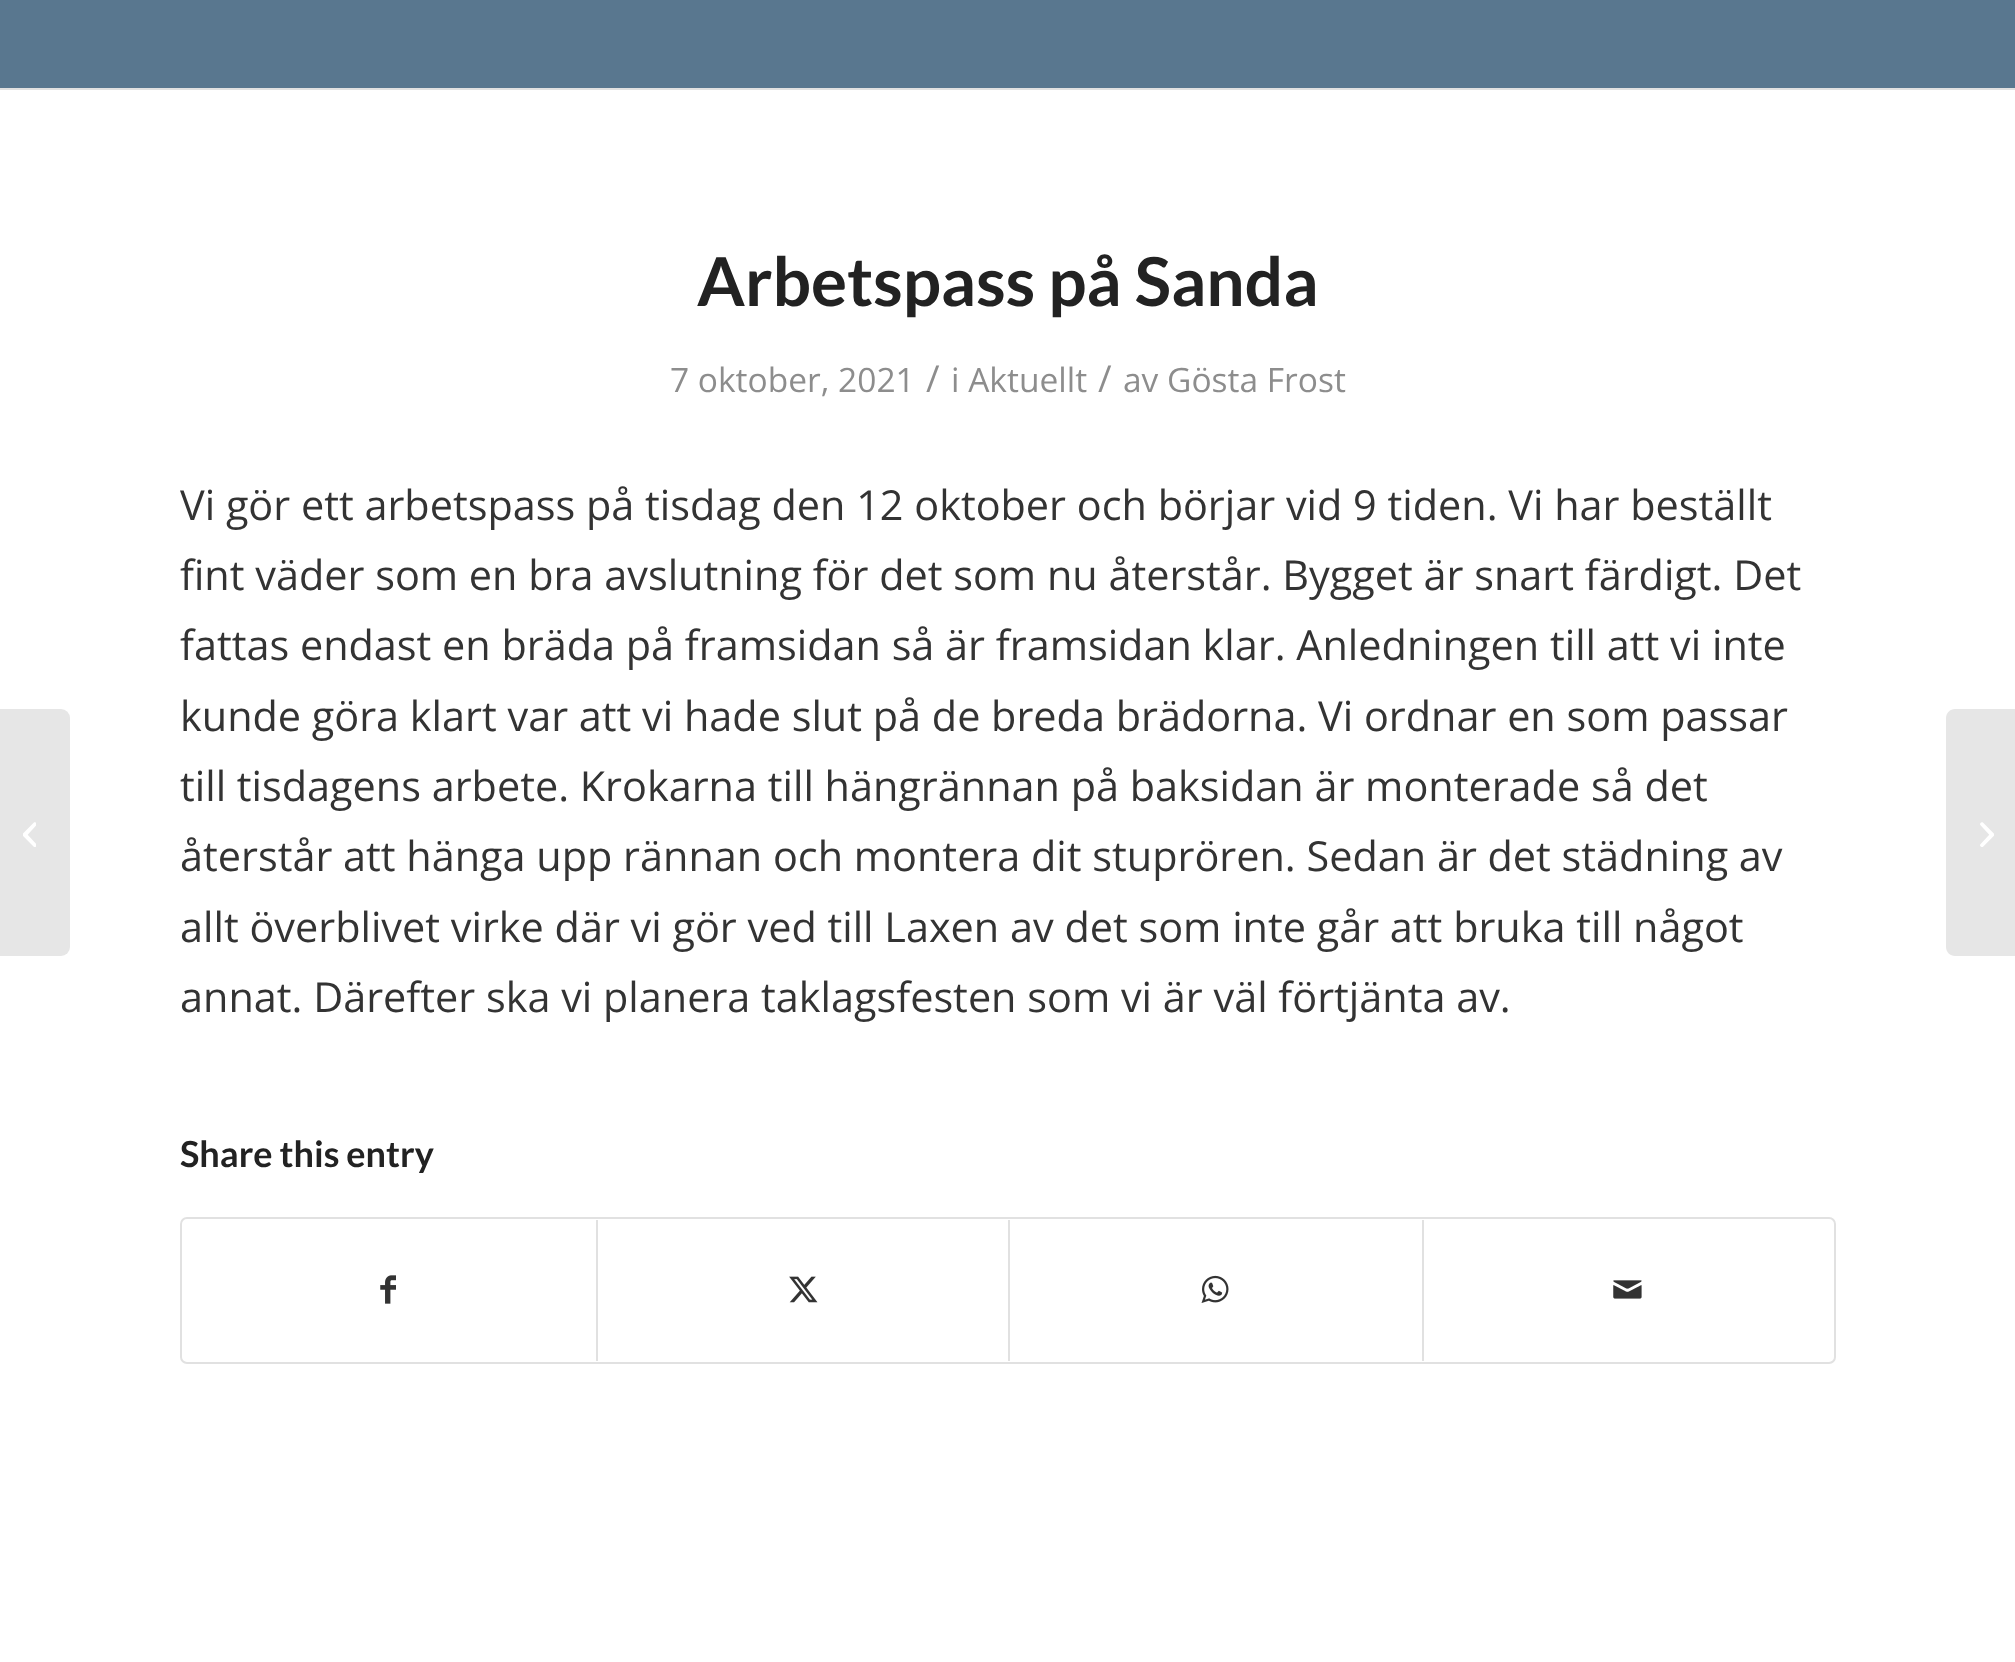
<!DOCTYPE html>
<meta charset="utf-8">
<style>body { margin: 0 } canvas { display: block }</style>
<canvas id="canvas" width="2015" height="1662"></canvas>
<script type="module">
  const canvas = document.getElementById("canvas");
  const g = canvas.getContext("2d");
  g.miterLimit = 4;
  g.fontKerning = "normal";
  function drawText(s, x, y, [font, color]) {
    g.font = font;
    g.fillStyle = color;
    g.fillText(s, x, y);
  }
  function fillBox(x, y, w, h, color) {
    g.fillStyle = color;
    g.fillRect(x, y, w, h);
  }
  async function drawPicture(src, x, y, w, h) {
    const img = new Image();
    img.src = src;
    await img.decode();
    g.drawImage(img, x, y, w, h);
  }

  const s1 = ["bold 67.5px Lato", "#222222"];
  const s2 = ["33.5px Open Sans", "#8D8D8D"];
  const s3 = ["37px Open Sans", "#8D8D8D"];
  const s4 = ["41.4px Open Sans", "#333333"];
  const s5 = ["bold 36px Lato", "#222222"];

  fillBox(0, 0, 2015, 1662, "#59778F");
  fillBox(0, 90, 2015, 1572, "#FFFFFF");
  g.fillStyle = "#E6E6E6";
  g.beginPath();
  g.roundRect(0, 709, 70, 247, [0, 9, 9, 0]);
  g.fill();
  await drawPicture("pic1.png", 23, 822, 13, 25);
  fillBox(0, 88, 2015, 2, "#E1E1E1");
  drawText("Arbetspass på Sanda", 697, 306, s1);
  drawText("7 oktober, 2021", 670, 392, s2);
  drawText("/", 926, 392, s3);
  drawText("i Aktuellt", 951, 392, s2);
  drawText("/", 1098, 392, s3);
  drawText("av Gösta Frost", 1123, 392, s2);
  drawText("Vi gör ett arbetspass på tisdag den 12 oktober och börjar vid 9 tiden. Vi har beställt", 180, 520, s4);
  drawText("fint väder som en bra avslutning för det som nu återstår. Bygget är snart färdigt. Det", 180, 590, s4);
  drawText("fattas endast en bräda på framsidan så är framsidan klar. Anledningen till att vi inte", 180, 660, s4);
  drawText("kunde göra klart var att vi hade slut på de breda brädorna. Vi ordnar en som passar", 180, 731, s4);
  drawText("till tisdagens arbete. Krokarna till hängrännan på baksidan är monterade så det", 180, 801, s4);
  drawText("återstår att hänga upp rännan och montera dit stuprören. Sedan är det städning av", 180, 871, s4);
  drawText("allt överblivet virke där vi gör ved till Laxen av det som inte går att bruka till något", 180, 942, s4);
  drawText("annat. Därefter ska vi planera taklagsfesten som vi är väl förtjänta av.", 180, 1012, s4);
  drawText("Share this entry", 180, 1167, s5);
  g.beginPath();
  g.roundRect(181, 1218, 1654, 145, 6);
  g.strokeStyle = "#E1E1E1";
  g.lineWidth = 2;
  g.stroke();
  await drawPicture("pic2.png", 380, 1275, 16, 29);
  fillBox(596, 1220, 2, 141, "#E1E1E1");
  await drawPicture("pic3.png", 789, 1276, 29, 27);
  fillBox(1008, 1220, 2, 141, "#E1E1E1");
  await drawPicture("pic4.png", 1201, 1275, 28, 28);
  fillBox(1422, 1220, 2, 141, "#E1E1E1");
  await drawPicture("pic5.png", 1613, 1280, 29, 19);
  g.fillStyle = "#E6E6E6";
  g.beginPath();
  g.moveTo(1955, 709);
  g.lineTo(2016, 709);
  g.lineTo(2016, 956);
  g.lineTo(1955, 956);
  g.bezierCurveTo(1950, 956, 1946, 952, 1946, 947);
  g.lineTo(1946, 718);
  g.bezierCurveTo(1946, 713, 1950, 709, 1955, 709);
  g.closePath();
  g.fill();
  await drawPicture("pic6.png", 1980, 822, 14, 25);
</script>
